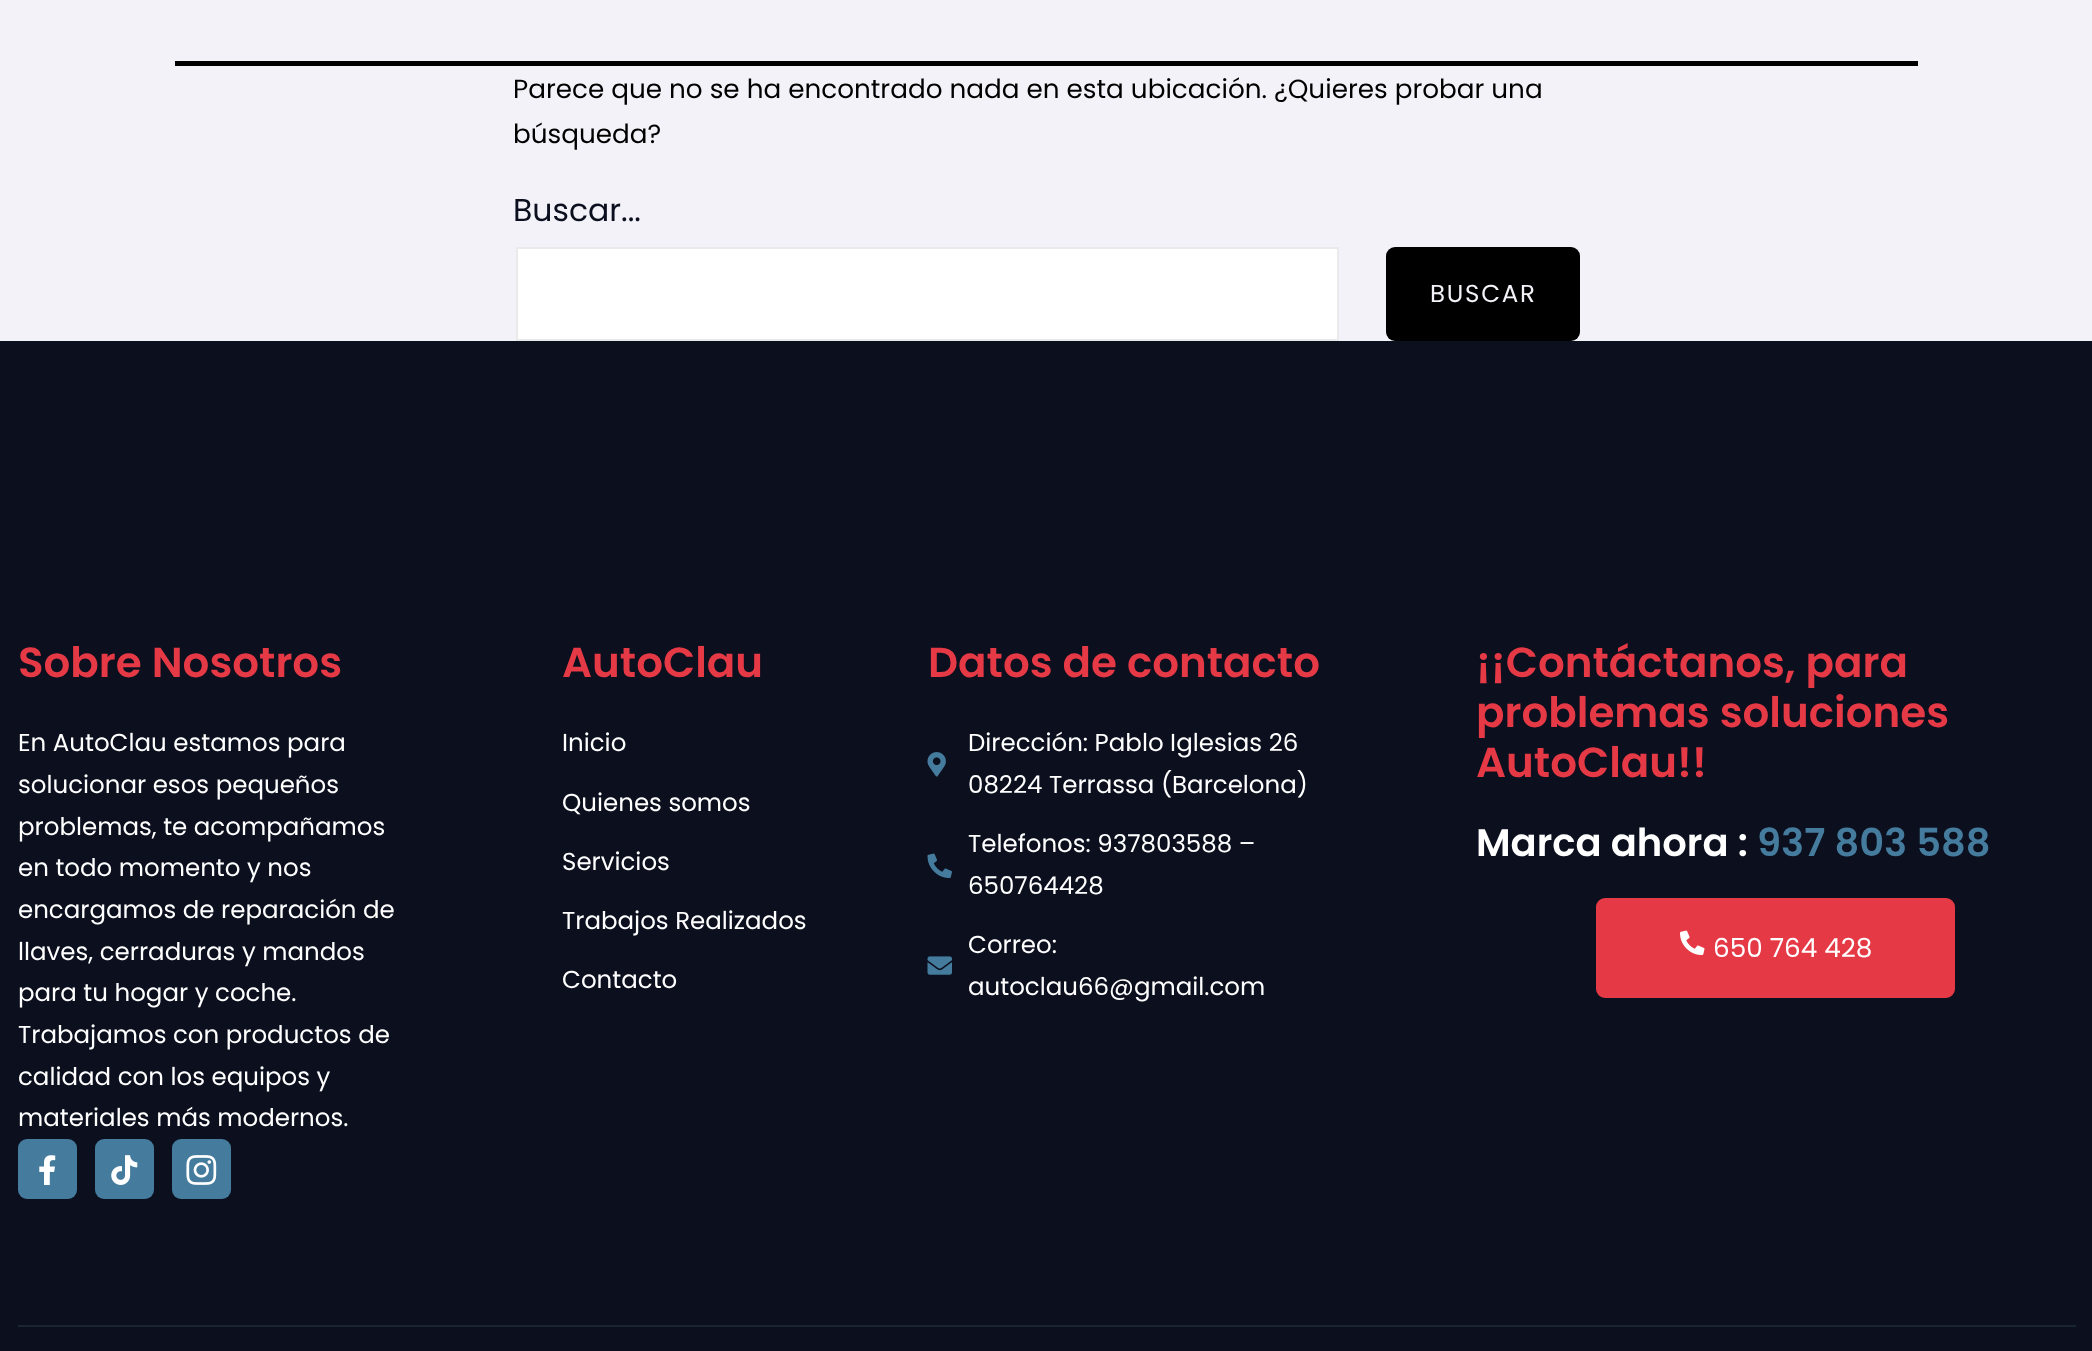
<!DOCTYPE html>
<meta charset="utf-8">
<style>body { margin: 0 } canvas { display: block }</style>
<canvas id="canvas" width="2092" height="1351"></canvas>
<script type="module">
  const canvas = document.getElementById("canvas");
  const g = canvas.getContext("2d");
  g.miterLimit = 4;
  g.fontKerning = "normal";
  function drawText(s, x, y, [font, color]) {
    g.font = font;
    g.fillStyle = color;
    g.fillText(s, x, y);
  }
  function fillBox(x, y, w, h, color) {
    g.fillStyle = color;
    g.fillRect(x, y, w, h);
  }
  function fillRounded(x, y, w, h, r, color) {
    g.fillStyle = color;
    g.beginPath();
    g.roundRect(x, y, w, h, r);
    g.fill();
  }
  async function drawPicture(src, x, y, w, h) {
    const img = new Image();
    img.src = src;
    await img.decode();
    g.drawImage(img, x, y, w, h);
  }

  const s1 = ["26.25px Poppins", "#000000"];
  const s2 = ["31.5px Poppins", "#0B0F1E"];
  const s3 = ["24.5px Poppins", "#F2F2F8"];
  const s4 = ["600 42px Poppins", "#E63946"];
  const s5 = ["24.5px Poppins", "#FFFFFF"];
  const s6 = ["600 38.5px Poppins", "#FFFFFF"];
  const s7 = ["600 38.5px Poppins", "#457B9D"];
  const s8 = ["26.25px Poppins", "#FFFFFF"];

  fillBox(0, 0, 2092, 1351, "#F2F2F8");
  fillBox(175, 61, 1743, 5, "#000000");
  drawText("Parece que no se ha encontrado nada en esta ubicación. ¿Quieres probar una", 513, 98, s1);
  drawText("búsqueda?", 513, 143, s1);
  drawText("Buscar...", 513, 221, s2);
  g.fillStyle = "#FFFFFF";
  g.beginPath();
  g.rect(517, 248, 821, 92);
  g.fill();
  g.strokeStyle = "#EAEAEA";
  g.lineWidth = 2;
  g.stroke();
  fillRounded(1386, 247, 194, 94, 9, "#000000");
  g.letterSpacing = "1.75px";
  drawText("BUSCAR", 1430, 302, s3);
  fillBox(0, 341, 2092, 1010, "#0B0F1E");
  g.letterSpacing = "0px";
  drawText("Sobre Nosotros", 18, 677, s4);
  drawText("En AutoClau estamos para", 18, 751, s5);
  drawText("solucionar esos pequeños", 18, 793, s5);
  drawText("problemas, te acompañamos", 18, 835, s5);
  drawText("en todo momento y nos", 18, 876, s5);
  drawText("encargamos de reparación de", 18, 918, s5);
  drawText("llaves, cerraduras y mandos", 18, 960, s5);
  drawText("para tu hogar y coche.", 18, 1001, s5);
  drawText("Trabajamos con productos de", 18, 1043, s5);
  drawText("calidad con los equipos y", 18, 1085, s5);
  drawText("materiales más modernos.", 18, 1126, s5);
  drawText("AutoClau", 562, 677, s4);
  drawText("Inicio", 562, 751, s5);
  drawText("Quienes somos", 562, 811, s5);
  drawText("Servicios", 562, 870, s5);
  drawText("Trabajos Realizados", 562, 929, s5);
  drawText("Contacto", 562, 988, s5);
  drawText("Datos de contacto", 928, 677, s4);
  await drawPicture("pic1.png", 927, 752, 19, 25);
  drawText("Dirección: Pablo Iglesias 26", 968, 751, s5);
  drawText("08224 Terrassa (Barcelona)", 968, 793, s5);
  await drawPicture("pic2.png", 927, 853, 25, 26);
  drawText("Telefonos: 937803588 –", 968, 852, s5);
  drawText("650764428", 968, 894, s5);
  await drawPicture("pic3.png", 927, 956, 25, 19);
  drawText("Correo:", 968, 953, s5);
  drawText("autoclau66@gmail.com", 968, 995, s5);
  drawText("¡¡Contáctanos, para", 1476, 677, s4);
  drawText("problemas soluciones", 1476, 727, s4);
  drawText("AutoClau!!", 1476, 777, s4);
  drawText("Marca ahora :", 1476, 856, s6);
  drawText("937 803 588", 1757, 856, s7);
  g.fillStyle = "#E63946";
  g.beginPath();
  g.roundRect(1597, 899, 357, 98, 8);
  g.fill();
  g.strokeStyle = "#E63946";
  g.stroke();
  await drawPicture("pic4.png", 1680, 930, 25, 26);
  drawText("650 764 428", 1713, 957, s8);
  fillRounded(18, 1139, 59, 60, 9, "#457B9D");
  await drawPicture("pic5.png", 39, 1155, 17, 30);
  fillRounded(95, 1139, 59, 60, 9, "#457B9D");
  await drawPicture("pic6.png", 111, 1155, 27, 30);
  fillRounded(172, 1139, 59, 60, 9, "#457B9D");
  await drawPicture("pic7.png", 186, 1155, 31, 30);
  fillBox(18, 1325, 2058, 2, "#192533");
</script>
